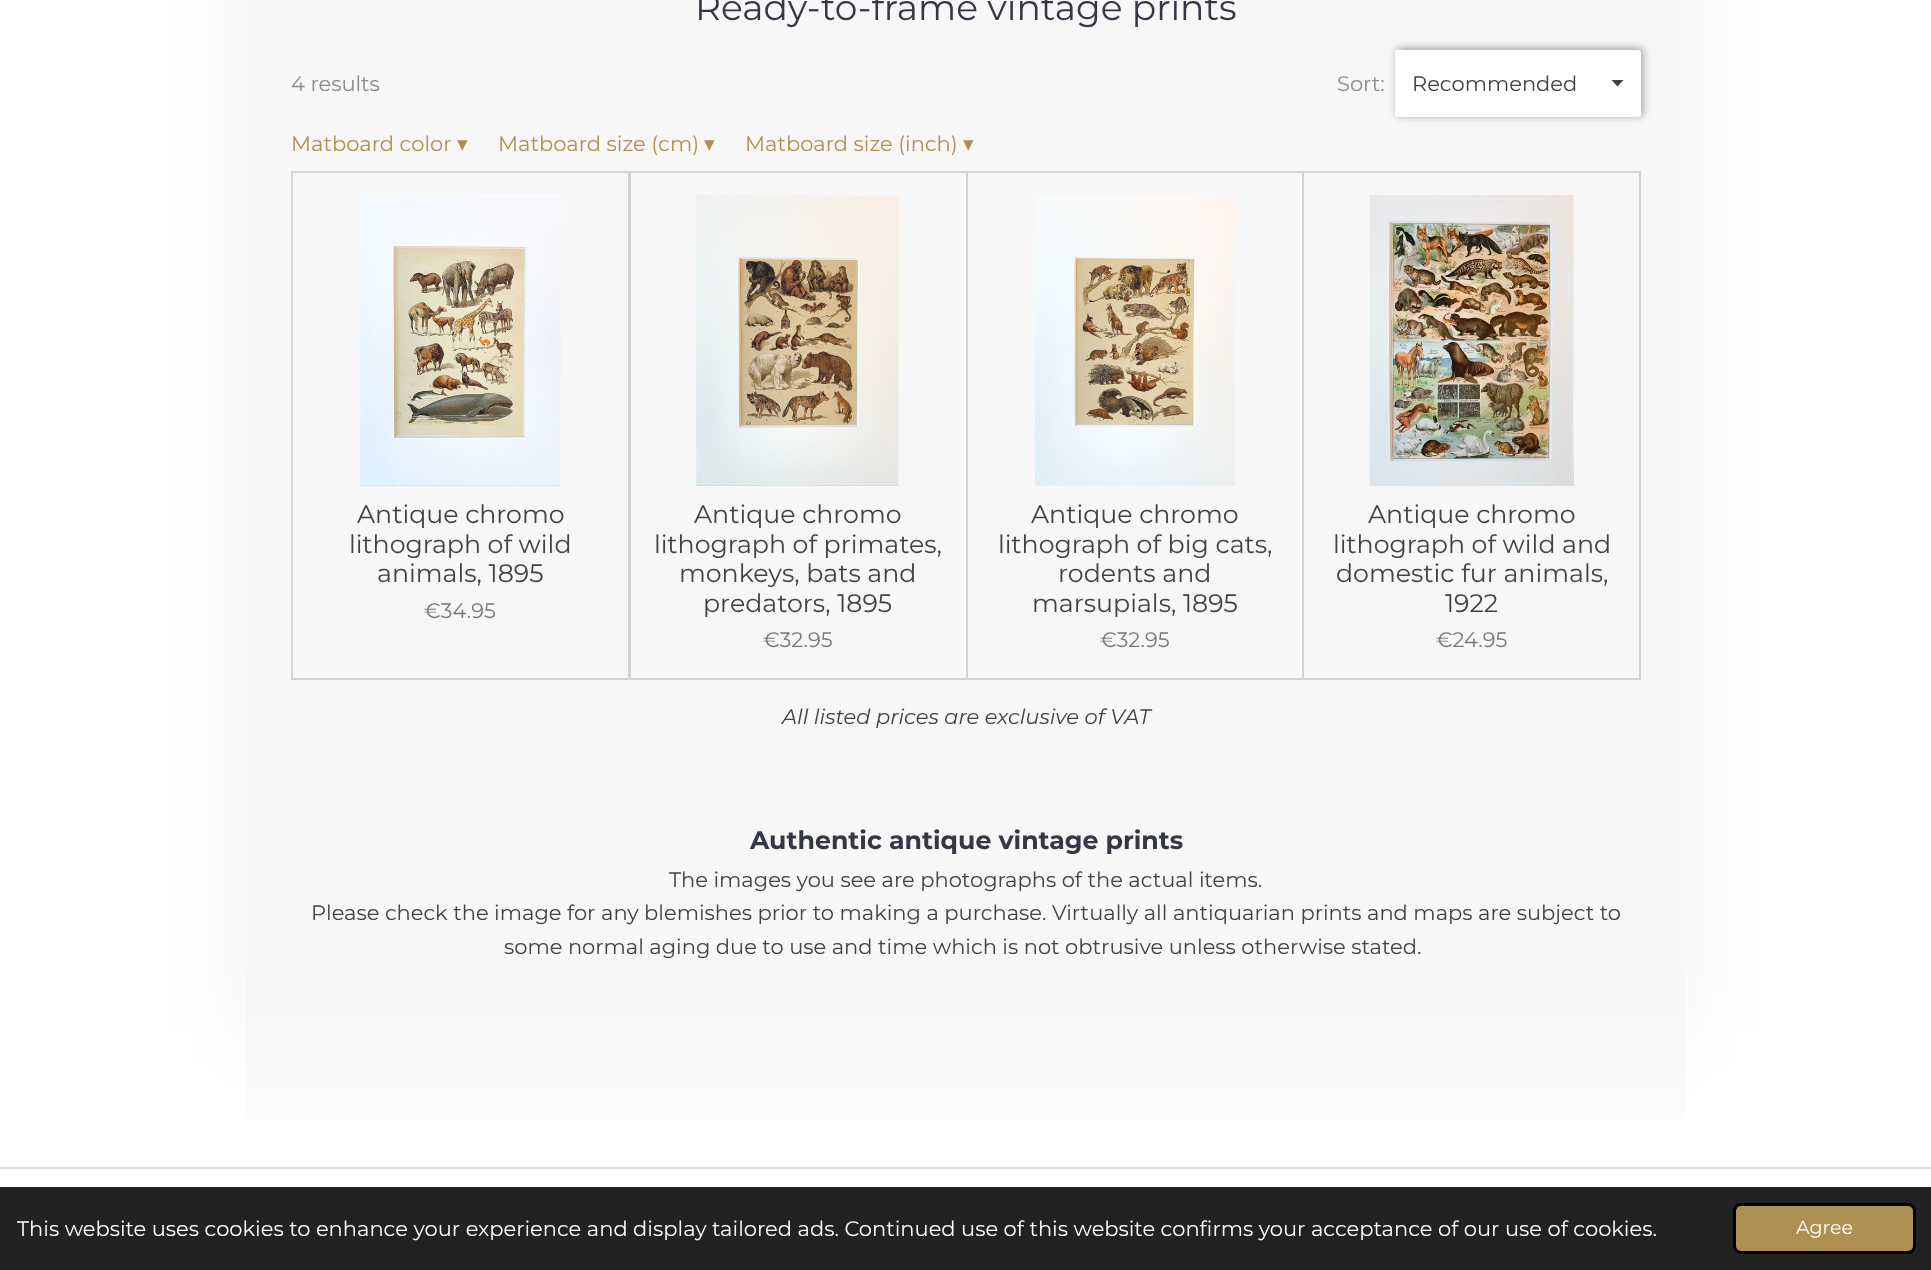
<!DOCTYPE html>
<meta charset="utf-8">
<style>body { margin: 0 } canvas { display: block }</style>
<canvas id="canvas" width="1931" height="1270"></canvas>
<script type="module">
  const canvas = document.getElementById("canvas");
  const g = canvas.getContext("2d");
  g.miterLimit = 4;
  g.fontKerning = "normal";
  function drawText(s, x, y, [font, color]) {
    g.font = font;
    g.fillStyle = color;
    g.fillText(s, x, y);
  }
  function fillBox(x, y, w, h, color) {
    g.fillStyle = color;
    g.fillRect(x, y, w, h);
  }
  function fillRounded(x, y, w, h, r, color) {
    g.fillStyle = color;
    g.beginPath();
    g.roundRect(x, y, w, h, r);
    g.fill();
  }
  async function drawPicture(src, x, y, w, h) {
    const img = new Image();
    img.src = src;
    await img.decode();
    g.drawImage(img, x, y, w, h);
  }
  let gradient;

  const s1 = ["36px Montserrat", "#353745"];
  const s2 = ["21px Montserrat", "#8B8B8B"];
  const s3 = ["21px Montserrat", "#424242"];
  const s4 = ["21px Montserrat", "#AE9152"];
  const s5 = ["21px DejaVu Sans", "#AE9152"];
  const s6 = ["25.25px Montserrat", "#424242"];
  const s7 = ["21px Montserrat", "#787878"];
  const s8 = ["italic 21px Montserrat", "#424242"];
  const s9 = ["bold 25.25px Montserrat", "#353745"];
  const s10 = ["21px Montserrat", "#FFFFFF"];
  const s11 = ["19px Montserrat", "#FFFFFF"];

  fillBox(0, 0, 1931, 1270, "#FFFFFF");
  fillBox(0, 1167, 1931, 2, "#D9D9D9");
  g.fillStyle = "rgba(0, 0, 0, 0.05)";
  g.filter = "blur(45px)";
  g.beginPath();
  g.rect(246, -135, 1440, 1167);
  g.fill();
  g.filter = "none";
  fillBox(246, 0, 1440, 1017, "#F7F7F7");
  drawText("Ready-to-frame vintage prints", 695, 20, s1);
  drawText("4 results", 291, 91, s2);
  drawText("Sort:", 1337, 91, s2);
  g.fillStyle = "rgba(0, 0, 0, 0.35)";
  g.filter = "blur(4px)";
  g.beginPath();
  g.roundRect(1397, 48, 246, 68, 3);
  g.fill();
  g.filter = "none";
  fillRounded(1395, 50, 246, 67, 3, "#FFFFFF");
  g.save();
  g.beginPath();
  g.rect(1611, 80, 14, 7);
  g.clip();
  g.fillStyle = "#424242";
  g.beginPath();
  g.moveTo(1617.5, 86.5);
  g.lineTo(1611, 79.5);
  g.lineTo(1624, 79.5);
  g.closePath();
  g.fill();
  g.restore();
  drawText("Recommended", 1412, 91, s3);
  drawText("Matboard color", 291, 151, s4);
  drawText("▾", 457, 151, s5);
  drawText("Matboard size (cm)", 498, 151, s4);
  drawText("▾", 704, 151, s5);
  drawText("Matboard size (inch)", 745, 151, s4);
  drawText("▾", 963, 151, s5);
  g.strokeStyle = "#D3D3D3";
  g.lineWidth = 2;
  g.strokeRect(292, 172, 337, 507);
  await drawPicture("pic1.png", 360, 195, 201, 291);
  drawText("Antique chromo", 357, 523, s6);
  drawText("lithograph of wild", 349, 553, s6);
  drawText("animals, 1895", 377, 582, s6);
  drawText("€34.95", 424, 618, s7);
  g.strokeRect(630, 172, 337, 507);
  await drawPicture("pic2.png", 696, 195, 203, 291);
  drawText("Antique chromo", 694, 523, s6);
  drawText("lithograph of primates,", 654, 553, s6);
  drawText("monkeys, bats and", 679, 582, s6);
  drawText("predators, 1895", 703, 612, s6);
  drawText("€32.95", 763, 647, s7);
  g.strokeRect(967, 172, 336, 507);
  await drawPicture("pic3.png", 1035, 195, 200, 291);
  drawText("Antique chromo", 1031, 523, s6);
  drawText("lithograph of big cats,", 998, 553, s6);
  drawText("rodents and", 1058, 582, s6);
  drawText("marsupials, 1895", 1032, 612, s6);
  drawText("€32.95", 1100, 647, s7);
  g.strokeRect(1303, 172, 337, 507);
  await drawPicture("pic4.png", 1369, 195, 205, 291);
  drawText("Antique chromo", 1368, 523, s6);
  drawText("lithograph of wild and", 1333, 553, s6);
  drawText("domestic fur animals,", 1336, 582, s6);
  drawText("1922", 1445, 612, s6);
  drawText("€24.95", 1436, 647, s7);
  drawText("All listed prices are exclusive of VAT", 782, 724, s8);
  drawText("Authentic antique vintage prints", 750, 849, s9);
  drawText("The images you see are photographs of the actual items.", 669, 887, s3);
  drawText("Please check the image for any blemishes prior to making a purchase. Virtually all antiquarian prints and maps are subject to", 311, 920, s3);
  drawText("some normal aging due to use and time which is not obtrusive unless otherwise stated.", 504, 954, s3);
  gradient = g.createLinearGradient(966, 1017, 966, 1167);
  gradient.addColorStop(0, "#F7F7F7");
  gradient.addColorStop(1, "#FFFFFF");
  g.fillStyle = gradient;
  g.fillRect(246, 1017, 1440, 103);
  fillBox(0, 1187, 1931, 83, "#222222");
  drawText("This website uses cookies to enhance your experience and display tailored ads. Continued use of this website confirms your acceptance of our use of cookies.", 17, 1236, s10);
  g.fillStyle = "#AE9152";
  g.beginPath();
  g.roundRect(1734.5, 1204.5, 180, 48, 6.5);
  g.fill();
  g.strokeStyle = "#000000";
  g.lineWidth = 3;
  g.stroke();
  drawText("Agree", 1796, 1234, s11);
</script>
